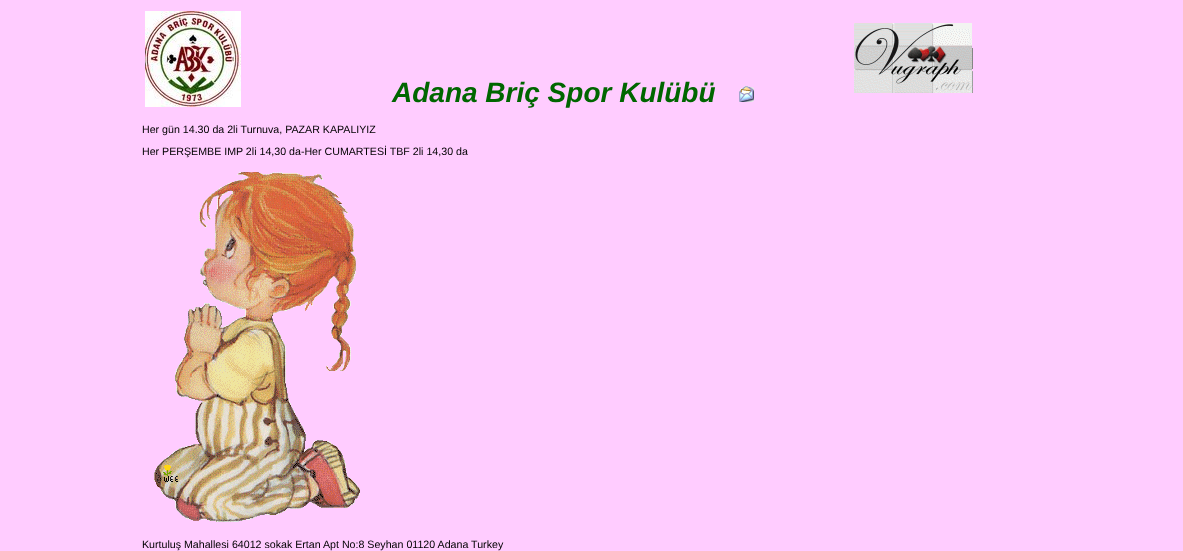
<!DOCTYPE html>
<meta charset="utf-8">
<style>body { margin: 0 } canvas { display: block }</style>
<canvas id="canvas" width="1183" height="551"></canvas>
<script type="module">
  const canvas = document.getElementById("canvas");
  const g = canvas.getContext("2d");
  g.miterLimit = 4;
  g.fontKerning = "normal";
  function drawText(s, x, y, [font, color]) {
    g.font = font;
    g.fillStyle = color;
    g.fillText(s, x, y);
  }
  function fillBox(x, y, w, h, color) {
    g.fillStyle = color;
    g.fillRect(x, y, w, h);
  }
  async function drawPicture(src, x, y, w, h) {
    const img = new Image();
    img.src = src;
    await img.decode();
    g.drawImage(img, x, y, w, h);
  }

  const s1 = ["italic bold 28px Liberation Sans", "#006600"];
  const s2 = ["10.65px Liberation Sans", "#000000"];

  fillBox(0, 0, 1183, 551, "#FFCCFF");
  await drawPicture("pic1.png", 145, 11, 96, 96);
  drawText("Adana Briç Spor Kulübü", 392, 102, s1);
  await drawPicture("pic2.png", 739, 86, 15, 16);
  await drawPicture("pic3.png", 854, 23, 119, 70);
  drawText("Her gün 14.30 da 2li Turnuva, PAZAR KAPALIYIZ", 142, 133, s2);
  drawText("Her PERŞEMBE IMP 2li 14,30 da-Her CUMARTESİ TBF 2li 14,30 da", 142, 155, s2);
  await drawPicture("pic4.png", 154, 172, 206, 350);
  drawText("Kurtuluş Mahallesi 64012 sokak Ertan Apt No:8 Seyhan 01120 Adana Turkey", 142, 548, s2);
</script>
